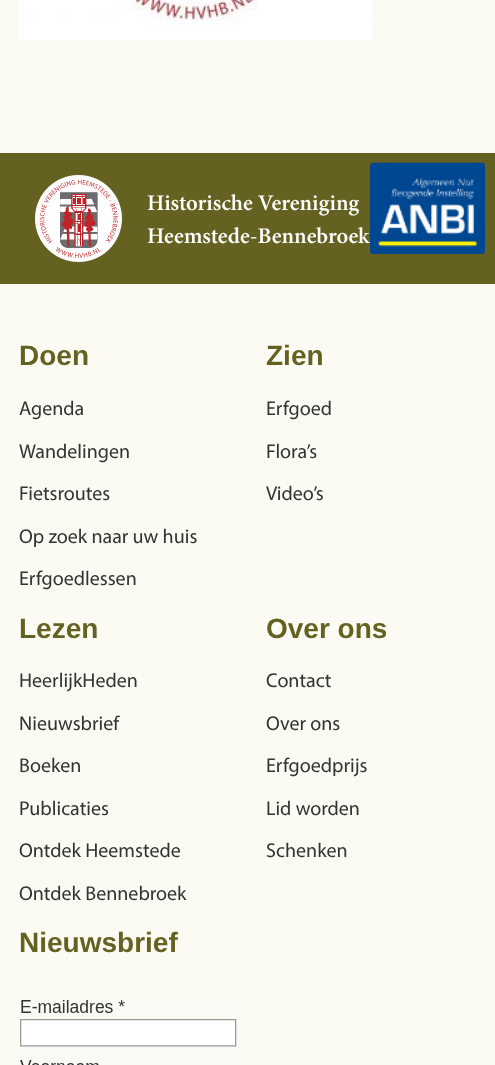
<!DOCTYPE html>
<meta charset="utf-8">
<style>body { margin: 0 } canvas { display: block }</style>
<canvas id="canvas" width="495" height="1065"></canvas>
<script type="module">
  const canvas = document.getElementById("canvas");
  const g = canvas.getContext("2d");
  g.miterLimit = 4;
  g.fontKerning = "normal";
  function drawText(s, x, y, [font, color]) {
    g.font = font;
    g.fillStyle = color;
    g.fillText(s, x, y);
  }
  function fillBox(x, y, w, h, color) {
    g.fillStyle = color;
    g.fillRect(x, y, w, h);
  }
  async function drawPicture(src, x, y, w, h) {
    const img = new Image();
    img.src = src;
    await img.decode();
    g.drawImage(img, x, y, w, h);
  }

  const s1 = ["600 22.5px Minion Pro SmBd", "#FFFFFF"];
  const s2 = ["bold 28px Liberation Sans", "#656121"];
  const s3 = ["20px Myriad", "#333333"];

  fillBox(0, 0, 495, 1065, "#FBFBF4");
  await drawPicture("pic1.png", 19, 0, 354, 40);
  fillBox(0, 153, 495, 131, "#656121");
  await drawPicture("pic2.png", 35, 175, 87, 87);
  drawText("Historische Vereniging", 147, 210, s1);
  drawText("Heemstede-Bennebroek", 147, 243, s1);
  await drawPicture("pic3.png", 370, 162, 115, 92);
  drawText("Doen", 19, 365, s2);
  drawText("Agenda", 19, 415, s3);
  drawText("Wandelingen", 19, 458, s3);
  drawText("Fietsroutes", 19, 500, s3);
  drawText("Op zoek naar uw huis", 19, 543, s3);
  drawText("Erfgoedlessen", 19, 585, s3);
  drawText("Zien", 266, 365, s2);
  drawText("Erfgoed", 266, 415, s3);
  drawText("Flora’s", 266, 458, s3);
  drawText("Video’s", 266, 500, s3);
  drawText("Lezen", 19, 638, s2);
  drawText("HeerlijkHeden", 19, 687, s3);
  drawText("Nieuwsbrief", 19, 730, s3);
  drawText("Boeken", 19, 772, s3);
  drawText("Publicaties", 19, 815, s3);
  drawText("Ontdek Heemstede", 19, 857, s3);
  drawText("Ontdek Bennebroek", 19, 900, s3);
  drawText("Over ons", 266, 638, s2);
  drawText("Contact", 266, 687, s3);
  drawText("Over ons", 266, 730, s3);
  drawText("Erfgoedprijs", 266, 772, s3);
  drawText("Lid worden", 266, 815, s3);
  drawText("Schenken", 266, 857, s3);
  drawText("Nieuwsbrief", 19, 952, s2);
  await drawPicture("pic4.png", 20, 1000, 217, 65);
</script>
